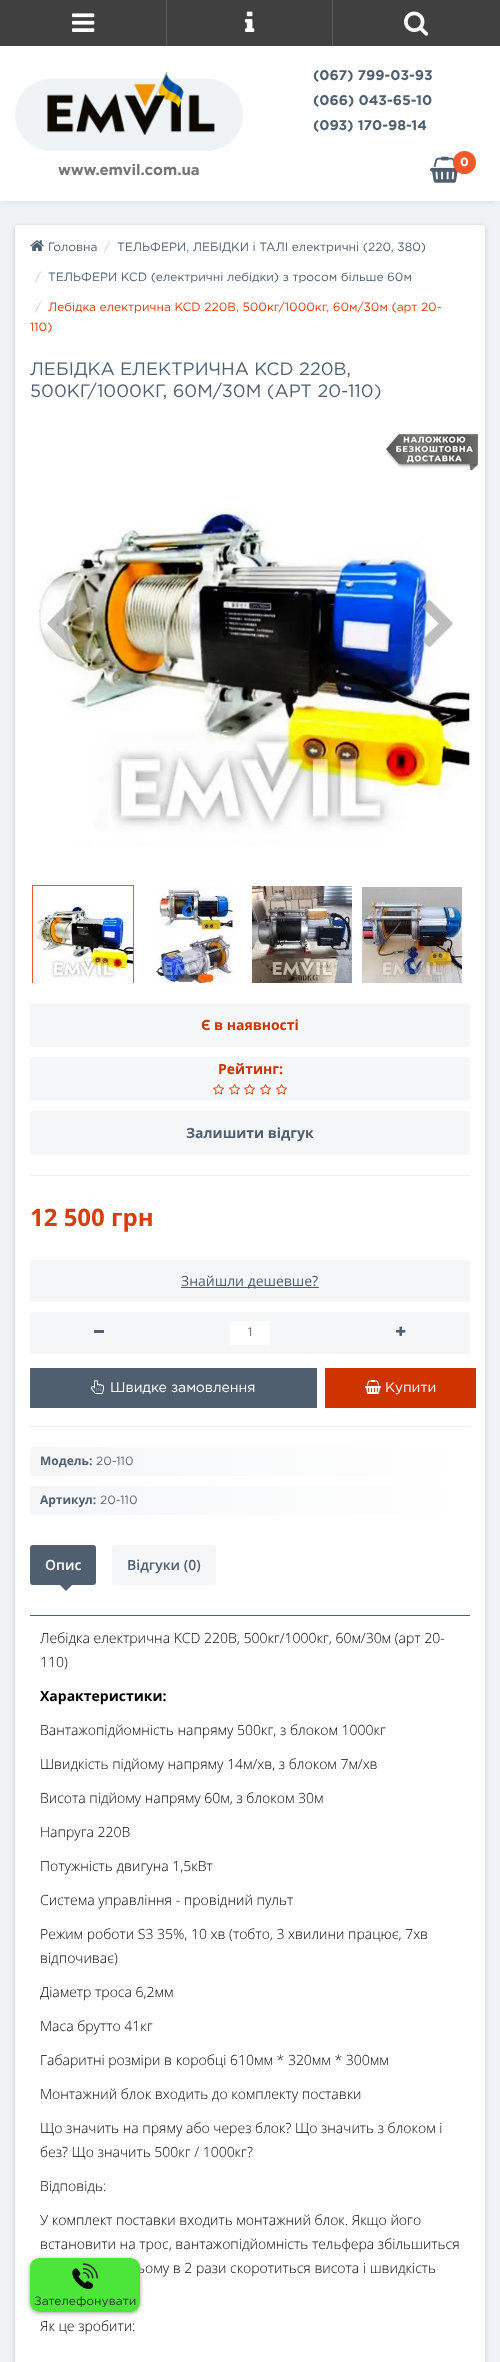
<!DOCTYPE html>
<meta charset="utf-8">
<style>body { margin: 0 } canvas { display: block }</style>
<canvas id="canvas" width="500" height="2362"></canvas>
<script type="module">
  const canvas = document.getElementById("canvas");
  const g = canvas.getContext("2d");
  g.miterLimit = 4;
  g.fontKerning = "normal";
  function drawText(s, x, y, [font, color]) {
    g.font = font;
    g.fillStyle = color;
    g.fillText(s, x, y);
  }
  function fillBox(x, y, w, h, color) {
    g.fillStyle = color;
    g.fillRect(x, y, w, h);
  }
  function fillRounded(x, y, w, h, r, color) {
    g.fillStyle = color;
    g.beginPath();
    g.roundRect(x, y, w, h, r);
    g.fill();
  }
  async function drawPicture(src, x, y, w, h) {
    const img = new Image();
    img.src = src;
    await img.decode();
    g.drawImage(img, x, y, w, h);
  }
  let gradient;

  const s1 = ["bold 14px Gotham", "#4F5F6F"];
  const s2 = ["bold 12px Gotham", "#FFFFFF"];
  const s3 = ["bold 15px Gotham", "#767676"];
  const s4 = ["12px Gotham", "#4F5F6F"];
  const s5 = ["12px Gotham", "#CCCCCC"];
  const s6 = ["12px Gotham", "#D83D0E"];
  const s7 = ["18px Gotham", "#4F5F6F"];
  const s8 = ["bold 14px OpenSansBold", "#CF3300"];
  const s9 = ["bold 14px OpenSansBold", "#4F5F6F"];
  const s10 = ["bold 24px OpenSansBold", "#D83D0E"];
  const s11 = ["14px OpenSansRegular", "#4F5F6F"];
  const s12 = ["12px Gotham", "#666666"];
  const s13 = ["14px Gotham", "#FFFFFF"];
  const s14 = ["bold 12px OpenSansBold", "#4F5F6F"];
  const s15 = ["600 14px Open Sans", "#FFFFFF"];
  const s16 = ["600 14px Open Sans", "#4F5F6F"];
  const s17 = ["300 14px Open Sans", "#000000"];
  const s18 = ["bold 14px Open Sans", "#000000"];
  const s19 = ["12px Gotham", "#293128"];

  fillBox(0, 0, 500, 2362, "#F0F3F6");
  g.fillStyle = "rgba(0, 0, 0, 0.12)";
  g.filter = "blur(3px)";
  g.beginPath();
  g.rect(4, 54, 492, 147);
  g.fill();
  g.filter = "none";
  fillBox(0, 0, 500, 46, "#404040");
  fillBox(166, 0, 1, 46, "#5D5D5D");
  await drawPicture("pic1.png", 72, 13, 23, 19);
  fillBox(332, 0, 1, 46, "#5D5D5D");
  await drawPicture("pic2.png", 245, 11, 10, 21);
  await drawPicture("pic3.png", 404, 11, 25, 25);
  fillBox(0, 46, 500, 155, "#FFFFFF");
  drawText("(067) 799-03-93", 313, 80, s1);
  drawText("(066) 043-65-10", 313, 105, s1);
  drawText("(093) 170-98-14", 313, 130, s1);
  await drawPicture("pic4.png", 430, 156, 28, 27);
  g.fillStyle = "#F1592A";
  g.beginPath();
  g.arc(464.5, 162.5, 11.5, 0, Math.PI * 2);
  g.fill();
  drawText("0", 460, 166, s2);
  await drawPicture("pic5.png", 15, 72, 228, 79);
  drawText("www.emvil.com.ua", 58, 175, s3);
  g.fillStyle = "rgba(0, 0, 0, 0.2)";
  g.filter = "blur(2px)";
  g.beginPath();
  g.roundRect(15, 226, 470, 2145, 3);
  g.fill();
  g.filter = "none";
  fillRounded(15, 225, 470, 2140, 3, "#FFFFFF");
  await drawPicture("pic6.png", 30, 240, 14, 11);
  drawText("Головна", 48, 251, s4);
  drawText("/", 104, 251, s5);
  drawText("ТЕЛЬФЕРИ, ЛЕБІДКИ і ТАЛІ електричні (220, 380)", 117, 251, s4);
  drawText("/", 35, 281, s5);
  drawText("ТЕЛЬФЕРИ KCD (електричні лебідки) з тросом більше 60м", 48, 281, s4);
  drawText("/", 35, 311, s5);
  drawText("Лебідка електрична KCD 220В, 500кг/1000кг, 60м/30м (арт 20-", 48, 311, s6);
  drawText("110)", 30, 331, s6);
  drawText("ЛЕБІДКА ЕЛЕКТРИЧНА KCD 220В,", 30, 375, s7);
  drawText("500КГ/1000КГ, 60М/30М (АРТ 20-110)", 30, 397, s7);
  await drawPicture("pic7.png", 386, 434, 92, 36);
  await drawPicture("pic8.png", 38, 508, 432, 339);
  await drawPicture("pic9.png", 47, 600, 31, 47);
  await drawPicture("pic10.png", 422, 600, 31, 47);
  g.save();
  g.beginPath();
  g.rect(30, 883, 440, 100);
  g.clip();
  g.strokeStyle = "#F1592A";
  g.strokeRect(32.5, 885.5, 101, 101);
  g.restore();
  await drawPicture("pic11.png", 33, 906, 100, 72);
  await drawPicture("pic12.png", 155, 886, 81, 97);
  await drawPicture("pic13.png", 252, 886, 100, 97);
  await drawPicture("pic14.png", 362, 887, 100, 96);
  fillRounded(30, 1003, 440, 44, 3, "#F4F6F8");
  drawText("Є в наявності", 201, 1030, s8);
  fillRounded(30, 1057, 440, 44, 3, "#F4F6F8");
  drawText("Рейтинг:", 218, 1074, s8);
  await drawPicture("pic15.png", 213, 1084, 12, 11);
  await drawPicture("pic15.png", 229, 1084, 12, 11);
  await drawPicture("pic15.png", 244, 1084, 12, 11);
  await drawPicture("pic15.png", 260, 1084, 12, 11);
  await drawPicture("pic15.png", 276, 1084, 12, 11);
  fillRounded(30, 1111, 440, 44, 3, "#F4F6F8");
  drawText("Залишити відгук", 186, 1138, s9);
  fillBox(30, 1175, 440, 1, "#EEEEEE");
  drawText("12 500 грн", 30, 1226, s10);
  fillRounded(30, 1260, 440, 42, 3, "#F4F6F8");
  fillBox(181, 1287, 138, 1, "#4F5F6F");
  drawText("Знайшли дешевше?", 181, 1286, s11);
  fillRounded(30, 1312, 440, 42, 3, "#F4F6F8");
  fillBox(94, 1330, 10, 3, "#4F5F6F");
  fillBox(230, 1321, 40, 24, "#FFFFFF");
  drawText("1", 248, 1336, s12);
  await drawPicture("pic16.png", 396, 1326, 10, 10);
  fillBox(30, 1368, 287, 40, "#4F5F6F");
  await drawPicture("pic17.png", 91, 1380, 13, 14);
  drawText("Швидке замовлення", 110, 1392, s13);
  fillBox(325, 1368, 151, 40, "#CF3300");
  await drawPicture("pic18.png", 365, 1380, 16, 14);
  drawText("Купити", 385, 1392, s13);
  fillBox(30, 1426, 440, 1, "#EEEEEE");
  gradient = g.createLinearGradient(30, 1462, 470, 1462);
  gradient.addColorStop(0, "#F5F6F8");
  gradient.addColorStop(1, "#FFFFFF");
  g.fillStyle = gradient;
  g.beginPath();
  g.roundRect(30, 1447, 440, 29, 3);
  g.fill();
  drawText("Модель:", 40, 1465, s14);
  drawText("20-110", 96, 1465, s12);
  gradient = g.createLinearGradient(30, 1501, 470, 1501);
  gradient.addColorStop(0, "#F5F6F8");
  gradient.addColorStop(1, "#FFFFFF");
  g.fillStyle = gradient;
  g.beginPath();
  g.roundRect(30, 1486, 440, 29, 3);
  g.fill();
  drawText("Артикул:", 40, 1504, s14);
  drawText("20-110", 100, 1504, s12);
  fillRounded(30, 1545, 66, 40, 3, "#4F5F6F");
  drawText("Опис", 45, 1570, s15);
  g.fillStyle = "#4F5F6F";
  g.beginPath();
  g.moveTo(60, 1585);
  g.lineTo(72, 1585);
  g.lineTo(66, 1591);
  g.closePath();
  g.fill();
  fillRounded(112, 1545, 104, 40, 3, "#F4F6F8");
  drawText("Відгуки (0)", 127, 1570, s16);
  fillBox(30, 1615, 440, 1, "#4F5F6F");
  drawText("Лебідка електрична KCD 220В, 500кг/1000кг, 60м/30м (арт 20-", 40, 1643, s17);
  drawText("110)", 40, 1667, s17);
  drawText("Характеристики:", 40, 1701, s18);
  drawText("Вантажопідйомність напряму 500кг, з блоком 1000кг", 40, 1735, s17);
  drawText("Швидкість підйому напряму 14м/хв, з блоком 7м/хв", 40, 1769, s17);
  drawText("Висота підйому напряму 60м, з блоком 30м", 40, 1803, s17);
  drawText("Напруга 220В", 40, 1837, s17);
  drawText("Потужність двигуна 1,5кВт", 40, 1871, s17);
  drawText("Система управління - провідний пульт", 40, 1905, s17);
  drawText("Режим роботи S3 35%, 10 хв (тобто, 3 хвилини працює, 7хв", 40, 1939, s17);
  drawText("відпочиває)", 40, 1963, s17);
  drawText("Діаметр троса 6,2мм", 40, 1997, s17);
  drawText("Маса брутто 41кг", 40, 2031, s17);
  drawText("Габаритні розміри в коробці 610мм * 320мм * 300мм", 40, 2065, s17);
  drawText("Монтажний блок входить до комплекту поставки", 40, 2099, s17);
  drawText("Що значить на пряму або через блок? Що значить з блоком і", 40, 2133, s17);
  drawText("без? Що значить 500кг / 1000кг?", 40, 2157, s17);
  drawText("Відповідь:", 40, 2191, s17);
  drawText("У комплект поставки входить монтажний блок. Якщо його", 40, 2225, s17);
  drawText("встановити на трос, вантажопідйомність тельфера збільшиться", 40, 2249, s17);
  drawText("ьому в 2 рази скоротиться висота і швидкість", 137, 2273, s17);
  drawText("Як це зробити:", 40, 2331, s17);
  g.save();
  g.beginPath();
  g.moveTo(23, 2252);
  g.lineTo(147, 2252);
  g.lineTo(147, 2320);
  g.lineTo(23, 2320);
  g.closePath();
  g.moveTo(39, 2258);
  g.lineTo(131, 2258);
  g.bezierCurveTo(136, 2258, 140, 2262, 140, 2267);
  g.lineTo(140, 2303);
  g.bezierCurveTo(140, 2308, 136, 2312, 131, 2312);
  g.lineTo(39, 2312);
  g.bezierCurveTo(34, 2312, 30, 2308, 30, 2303);
  g.lineTo(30, 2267);
  g.bezierCurveTo(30, 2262, 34, 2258, 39, 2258);
  g.closePath();
  g.clip("evenodd");
  g.fillStyle = "rgba(123, 123, 123, 0.74)";
  g.filter = "blur(2px)";
  g.beginPath();
  g.roundRect(30, 2259, 110, 54, 9);
  g.fill();
  g.filter = "none";
  g.restore();
  fillRounded(30, 2258, 110, 54, 9, "rgba(66, 228, 46, 0.95)");
  await drawPicture("pic19.png", 72, 2263, 26, 27);
  drawText("Зателефонувати", 34, 2305, s19);
</script>
